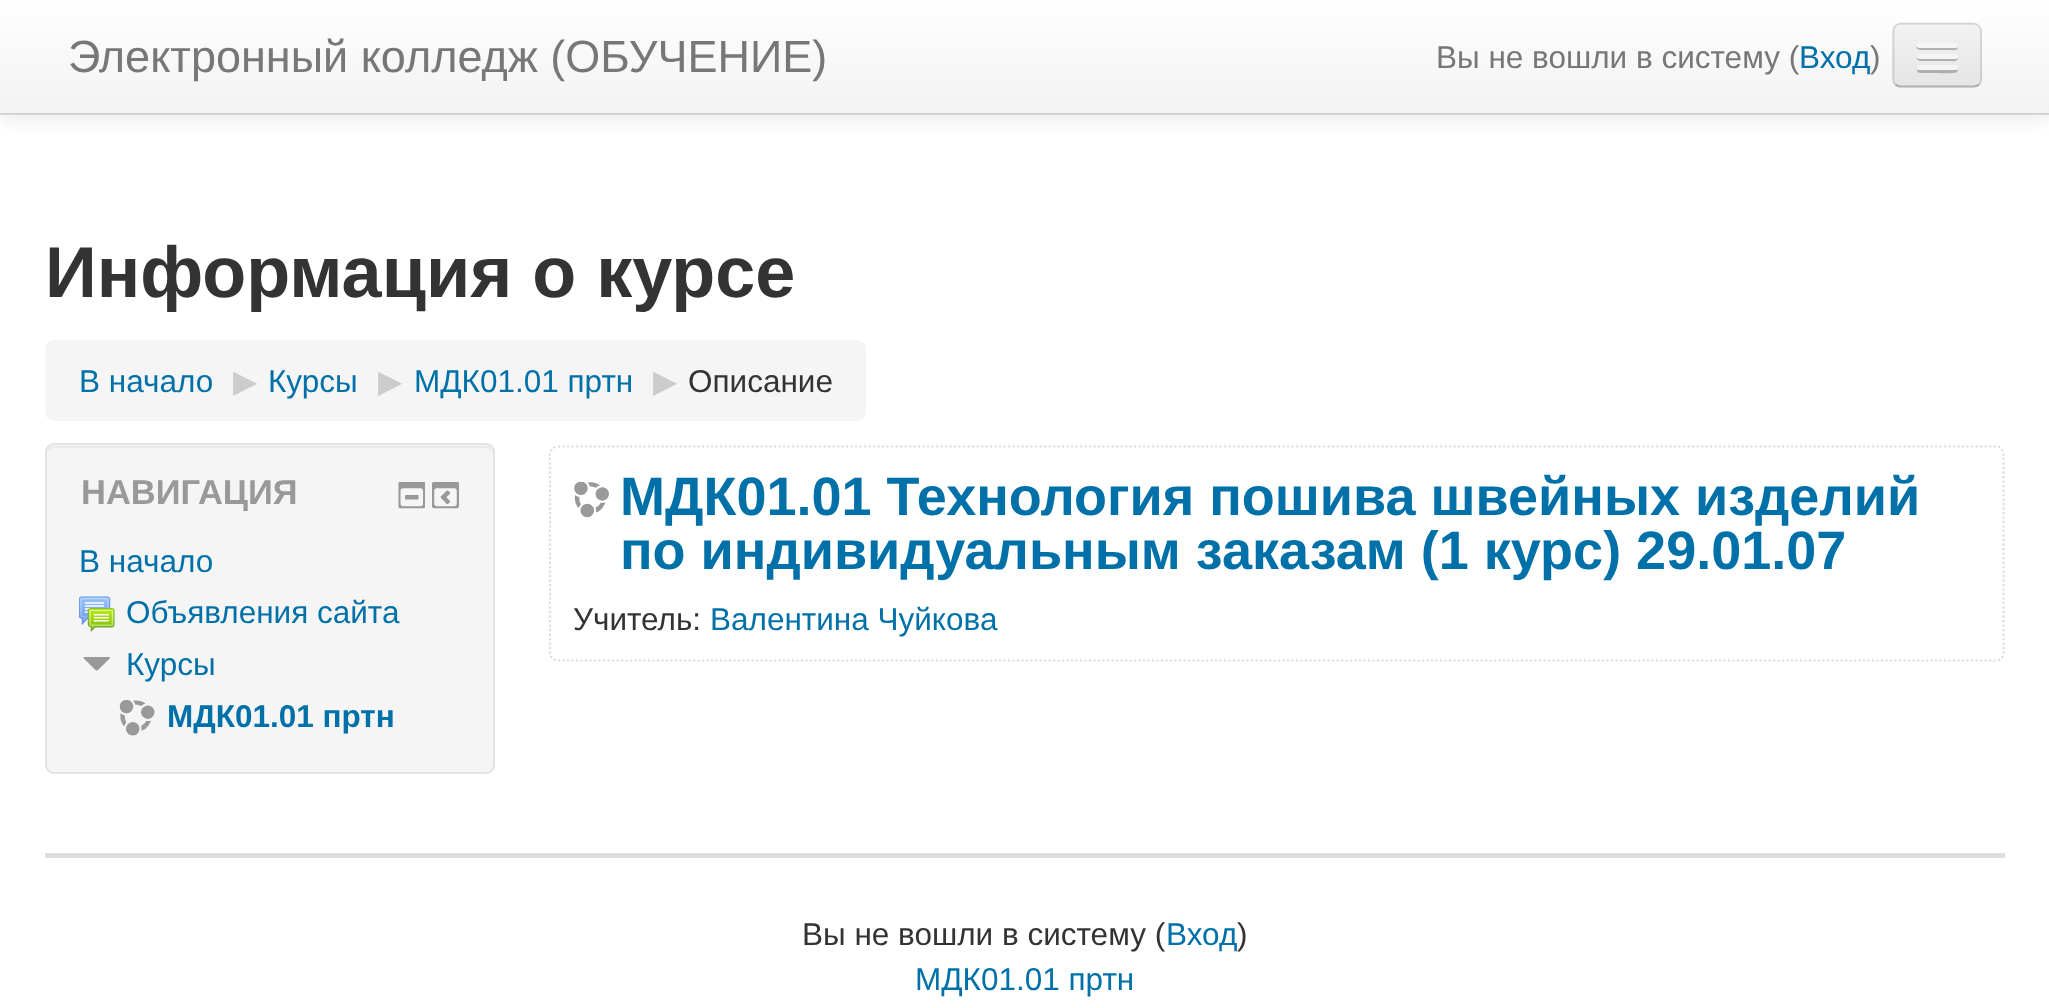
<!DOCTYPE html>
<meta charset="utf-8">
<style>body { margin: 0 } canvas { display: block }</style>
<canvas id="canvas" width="2049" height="1008"></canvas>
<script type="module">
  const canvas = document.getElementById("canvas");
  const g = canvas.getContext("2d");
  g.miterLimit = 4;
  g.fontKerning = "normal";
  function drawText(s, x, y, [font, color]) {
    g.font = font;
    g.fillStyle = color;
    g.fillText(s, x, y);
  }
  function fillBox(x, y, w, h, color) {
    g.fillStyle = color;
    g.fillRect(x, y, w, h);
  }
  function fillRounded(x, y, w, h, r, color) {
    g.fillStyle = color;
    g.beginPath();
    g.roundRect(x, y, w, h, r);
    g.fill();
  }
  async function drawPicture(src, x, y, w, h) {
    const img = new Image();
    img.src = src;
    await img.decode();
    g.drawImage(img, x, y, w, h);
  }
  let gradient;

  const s1 = ["45px Liberation Sans", "#777777"];
  const s2 = ["31.5px Liberation Sans", "#777777"];
  const s3 = ["31.5px Liberation Sans", "#0070A8"];
  const s4 = ["bold 72px Liberation Sans", "#333333"];
  const s5 = ["31.5px DejaVu Sans", "#CCCCCC"];
  const s6 = ["31.5px Liberation Sans", "#333333"];
  const s7 = ["bold 34.5px Liberation Sans", "#999999"];
  const s8 = ["bold 31.5px Liberation Sans", "#0070A8"];
  const s9 = ["bold 54px Liberation Sans", "#0070A8"];

  fillBox(0, 0, 2049, 1008, "#FFFFFF");
  g.fillStyle = "rgba(0, 0, 0, 0.1)";
  g.filter = "blur(11px)";
  g.beginPath();
  g.rect(0, 2, 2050, 115);
  g.fill();
  g.filter = "none";
  gradient = g.createLinearGradient(1025, 0, 1025, 113);
  gradient.addColorStop(0, "#FFFFFF");
  gradient.addColorStop(1, "#F2F2F2");
  g.fillStyle = gradient;
  g.fillRect(0, 0, 2049, 113);
  fillBox(0, 113, 2049, 2, "#D4D4D4");
  drawText("Электронный колледж (ОБУЧЕНИЕ)", 68, 72, s1);
  drawText("Вы не вошли в систему (", 1436, 68, s2);
  drawText("Вход", 1799, 68, s3);
  drawText(")", 1870, 68, s2);
  fillRounded(1892, 23, 90, 65, 9, "#EDEDED");
  g.save();
  g.beginPath();
  g.roundRect(1892, 23, 90, 65, 9);
  g.clip();
  gradient = g.createLinearGradient(1937, 25, 1937, 86);
  gradient.addColorStop(0, "#F2F2F2");
  gradient.addColorStop(1, "#E5E5E5");
  g.fillStyle = gradient;
  g.fillRect(1892, 25, 90, 61);
  g.restore();
  g.beginPath();
  g.moveTo(1979, 84.5);
  g.bezierCurveTo(1977.5, 86, 1975.5, 86.5, 1973, 86.5);
  g.lineTo(1901, 86.5);
  g.bezierCurveTo(1899, 86.5, 1897, 86, 1895.5, 84.5);
  g.strokeStyle = "rgba(0, 0, 0, 0.25)";
  g.lineWidth = 2.2;
  g.stroke();
  g.beginPath();
  g.moveTo(1895.5, 84.5);
  g.bezierCurveTo(1894, 83, 1893.5, 81, 1893.5, 79);
  g.lineTo(1893.5, 31.5);
  g.bezierCurveTo(1893.5, 29.5, 1894, 27.5, 1895.5, 26);
  g.bezierCurveTo(1897, 24.5, 1899, 23.5, 1901, 23.5);
  g.lineTo(1973, 23.5);
  g.bezierCurveTo(1975.5, 23.5, 1977.5, 24.5, 1979, 26);
  g.bezierCurveTo(1980.5, 27.5, 1981, 29.5, 1981, 31.5);
  g.lineTo(1981, 79);
  g.bezierCurveTo(1981, 81, 1980.5, 83, 1979, 84.5);
  g.strokeStyle = "rgba(0, 0, 0, 0.1)";
  g.stroke();
  g.fillStyle = "#B2B2B2";
  g.beginPath();
  g.moveTo(1917, 46);
  g.bezierCurveTo(1914, 51, 1925, 50, 1926, 50);
  g.lineTo(1950, 50);
  g.bezierCurveTo(1951, 50, 1957, 51, 1958, 48);
  g.lineTo(1957, 46);
  g.lineTo(1956, 47);
  g.lineTo(1919, 47);
  g.closePath();
  g.fill();
  fillRounded(1917, 43, 41, 5, 2.5, "#F5F5F5");
  g.fillStyle = "#B0B0B0";
  g.beginPath();
  g.moveTo(1917, 57);
  g.bezierCurveTo(1915, 62, 1925, 61, 1926, 61);
  g.lineTo(1950, 61);
  g.bezierCurveTo(1951, 61, 1957, 62, 1958, 59);
  g.lineTo(1957, 57);
  g.bezierCurveTo(1957, 58, 1956, 58, 1955, 58);
  g.lineTo(1919, 58);
  g.bezierCurveTo(1918, 58, 1918, 58, 1917, 57);
  g.closePath();
  g.fill();
  fillRounded(1917, 54, 41, 5, 2.5, "#F5F5F5");
  g.fillStyle = "#AEAEAE";
  g.beginPath();
  g.moveTo(1918, 69);
  g.bezierCurveTo(1914, 74, 1925, 73, 1926, 73);
  g.lineTo(1938, 73);
  g.bezierCurveTo(1941, 73, 1955, 74, 1957, 72);
  g.bezierCurveTo(1958, 71, 1958, 70, 1957, 69);
  g.lineTo(1956, 70);
  g.lineTo(1919, 70);
  g.closePath();
  g.fill();
  fillRounded(1917, 65, 41, 5, 2.5, "#F5F5F5");
  drawText("Информация о курсе", 45, 297, s4);
  fillRounded(45, 340, 821, 81, 9, "#F5F5F5");
  drawText("В начало", 79, 392, s3);
  drawText("▶︎", 233, 392, s5);
  drawText("Курсы", 268, 392, s3);
  drawText("▶︎", 378, 392, s5);
  drawText("МДК01.01 пртн", 414, 392, s3);
  drawText("▶︎", 653, 392, s5);
  drawText("Описание", 688, 392, s6);
  fillRounded(45, 443, 450, 331, 9, "#F5F5F5");
  g.fillStyle = "#E9E9E9";
  g.beginPath();
  g.moveTo(54, 448);
  g.lineTo(486, 448);
  g.bezierCurveTo(490, 448, 493, 451, 493, 454);
  g.lineTo(493, 453);
  g.bezierCurveTo(493, 449, 490, 446, 486, 446);
  g.lineTo(54, 446);
  g.bezierCurveTo(50, 446, 47, 449, 47, 453);
  g.lineTo(47, 454);
  g.bezierCurveTo(47, 451, 50, 448, 54, 448);
  g.closePath();
  g.fill();
  g.beginPath();
  g.roundRect(46, 444, 448, 329, 8);
  g.strokeStyle = "#E3E3E3";
  g.lineWidth = 2;
  g.stroke();
  drawText("НАВИГАЦИЯ", 81, 504, s7);
  await drawPicture("pic1.png", 398, 482, 27, 27);
  await drawPicture("pic2.png", 432, 482, 27, 27);
  drawText("В начало", 79, 572, s3);
  await drawPicture("pic3.png", 79, 596, 36, 36);
  drawText("Объявления сайта", 126, 623, s3);
  await drawPicture("pic4.png", 83, 657, 27, 14);
  drawText("Курсы", 126, 675, s3);
  await drawPicture("pic5.png", 119, 700, 36, 36);
  drawText("МДК01.01 пртн", 167, 727, s8);
  g.beginPath();
  g.moveTo(558, 446.5);
  g.lineTo(1996, 446.5);
  g.bezierCurveTo(2000, 446.5, 2003.5, 450, 2003.5, 454.5);
  g.lineTo(2003.5, 652.5);
  g.bezierCurveTo(2003.5, 657, 2000, 660.5, 1996, 660.5);
  g.lineTo(558, 660.5);
  g.bezierCurveTo(553.5, 660.5, 550, 657, 550, 652.5);
  g.lineTo(550, 454.5);
  g.bezierCurveTo(550, 450, 553.5, 446.5, 558, 446.5);
  g.closePath();
  g.strokeStyle = "#DDDDDD";
  g.lineWidth = 2.2;
  g.setLineDash([2.25, 2.25]);
  g.stroke();
  await drawPicture("pic6.png", 574, 482, 35, 36);
  drawText("МДК01.01 Технология пошива швейных изделий", 620, 515, s9);
  drawText("по индивидуальным заказам (1 курс) 29.01.07", 620, 569, s9);
  drawText("Учитель:", 573, 630, s6);
  drawText("Валентина Чуйкова", 710, 630, s3);
  fillBox(45, 853, 1960, 5, "#DDDDDD");
  drawText("Вы не вошли в систему (", 802, 945, s6);
  drawText("Вход", 1166, 945, s3);
  drawText(")", 1237, 945, s6);
  drawText("МДК01.01 пртн", 915, 990, s3);
</script>
